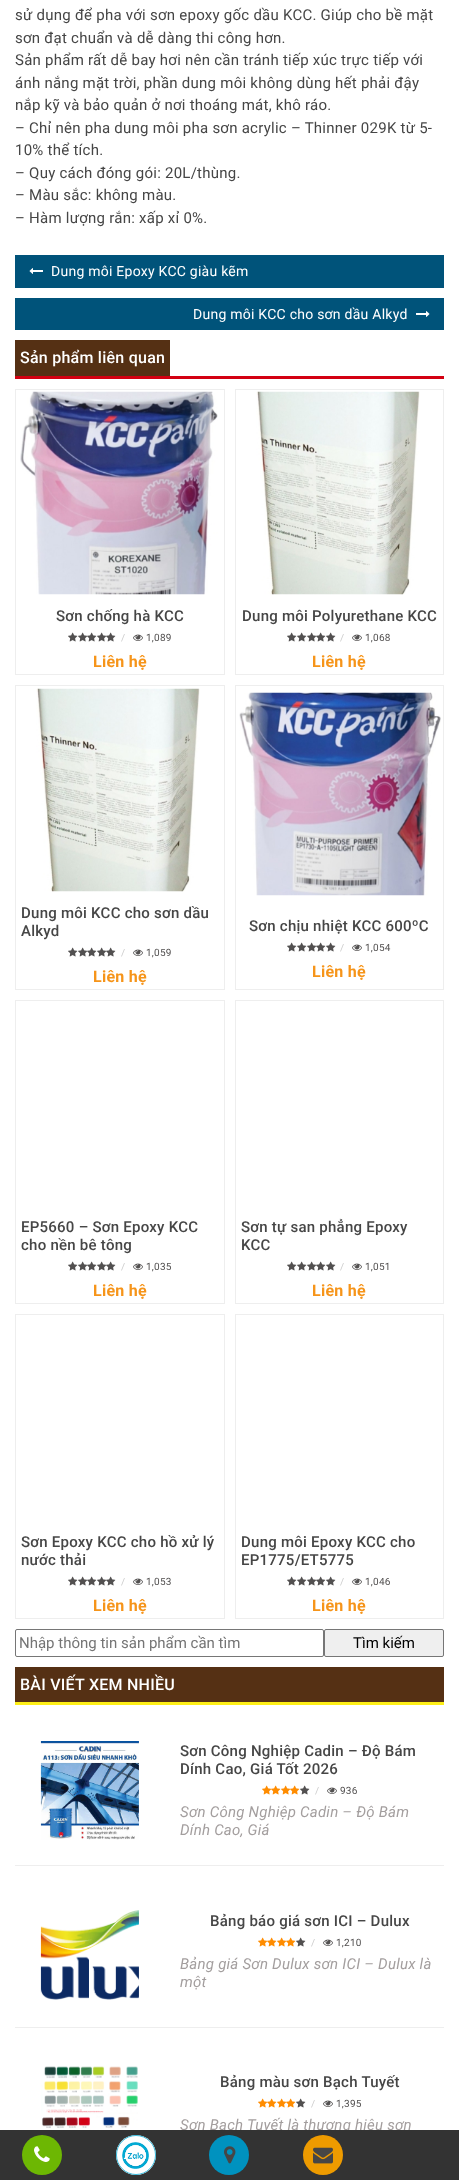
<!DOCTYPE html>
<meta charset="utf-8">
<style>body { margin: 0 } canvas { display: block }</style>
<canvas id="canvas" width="459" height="2180"></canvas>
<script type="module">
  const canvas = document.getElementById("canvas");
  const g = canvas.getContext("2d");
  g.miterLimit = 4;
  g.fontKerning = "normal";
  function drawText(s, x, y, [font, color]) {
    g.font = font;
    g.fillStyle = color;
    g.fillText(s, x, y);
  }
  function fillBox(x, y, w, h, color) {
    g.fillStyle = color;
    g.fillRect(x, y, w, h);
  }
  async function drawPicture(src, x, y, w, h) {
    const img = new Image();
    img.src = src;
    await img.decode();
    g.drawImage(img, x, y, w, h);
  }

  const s1 = ["15px Roboto", "#464646"];
  const s2 = ["14px Roboto", "#FFFFFF"];
  const s3 = ["500 16px Roboto", "#FFFFFF"];
  const s4 = ["500 15px Roboto", "#464646"];
  const s5 = ["10px Roboto", "#CCCCCC"];
  const s6 = ["10px Roboto", "#525050"];
  const s7 = ["bold 16px Roboto", "#F69419"];
  const s8 = ["15px Roboto", "#757575"];
  const s9 = ["15px Roboto", "#000000"];
  const s10 = ["italic 15px Roboto", "#A39E9E"];

  fillBox(0, 0, 459, 2180, "#FFFFFF");
  g.letterSpacing = "0.25px";
  drawText("sử dụng để pha với sơn epoxy gốc dầu KCC. Giúp cho bề mặt", 15, 20, s1);
  drawText("sơn đạt chuẩn và dễ dàng thi công hơn.", 15, 43, s1);
  drawText("Sản phẩm rất dễ bay hơi nên cần tránh tiếp xúc trực tiếp với", 15, 65, s1);
  drawText("ánh nắng mặt trời, phần dung môi không dùng hết phải đậy", 15, 88, s1);
  drawText("nắp kỹ và bảo quản ở nơi thoáng mát, khô ráo.", 15, 110, s1);
  drawText("– Chỉ nên pha dung môi pha sơn acrylic – Thinner 029K từ 5-", 15, 133, s1);
  drawText("10% thể tích.", 15, 155, s1);
  drawText("– Quy cách đóng gói: 20L/thùng.", 15, 178, s1);
  drawText("– Màu sắc: không màu.", 15, 200, s1);
  drawText("– Hàm lượng rắn: xấp xỉ 0%.", 15, 223, s1);
  fillBox(15, 255, 429, 33, "#00537A");
  await drawPicture("pic1.png", 29, 268, 14, 6);
  drawText("Dung môi Epoxy KCC giàu kẽm", 51, 276, s2);
  fillBox(15, 298, 429, 32, "#00537A");
  drawText("Dung môi KCC cho sơn dầu Alkyd", 193, 319, s2);
  await drawPicture("pic2.png", 416, 311, 14, 6);
  fillBox(15, 376, 429, 3, "#D30011");
  fillBox(15, 340, 155, 36, "#553014");
  drawText("Sản phẩm liên quan", 20, 363, s3);
  g.strokeStyle = "#EEEEEE";
  g.strokeRect(15.5, 389.5, 209, 285);
  await drawPicture("pic3.png", 20, 391, 198, 204);
  drawText("Sơn chống hà KCC", 56, 621, s4);
  await drawPicture("pic4.png", 68, 632, 10, 10);
  await drawPicture("pic4.png", 78, 632, 10, 10);
  await drawPicture("pic5.png", 87, 632, 10, 10);
  await drawPicture("pic4.png", 97, 632, 10, 10);
  await drawPicture("pic5.png", 106, 632, 10, 10);
  drawText("/", 121, 641, s5);
  await drawPicture("pic6.png", 133, 634, 10, 7);
  drawText("1,089", 146, 641, s6);
  drawText("Liên hệ", 93, 667, s7);
  g.strokeRect(235.5, 389.5, 208, 285);
  await drawPicture("pic7.png", 256, 391, 164, 204);
  drawText("Dung môi Polyurethane KCC", 242, 621, s4);
  await drawPicture("pic4.png", 287, 632, 10, 10);
  await drawPicture("pic4.png", 297, 632, 10, 10);
  await drawPicture("pic4.png", 307, 632, 10, 10);
  await drawPicture("pic5.png", 316, 632, 10, 10);
  await drawPicture("pic4.png", 326, 632, 10, 10);
  drawText("/", 340, 641, s5);
  await drawPicture("pic6.png", 352, 634, 10, 7);
  drawText("1,068", 365, 641, s6);
  drawText("Liên hệ", 312, 667, s7);
  g.strokeRect(15.5, 685.5, 209, 304);
  await drawPicture("pic8.png", 36, 688, 164, 204);
  drawText("Dung môi KCC cho sơn dầu", 21, 918, s4);
  drawText("Alkyd", 21, 936, s4);
  await drawPicture("pic4.png", 68, 947, 10, 10);
  await drawPicture("pic4.png", 78, 947, 10, 10);
  await drawPicture("pic5.png", 87, 947, 10, 10);
  await drawPicture("pic4.png", 97, 947, 10, 10);
  await drawPicture("pic5.png", 106, 947, 10, 10);
  drawText("/", 121, 956, s5);
  await drawPicture("pic6.png", 133, 949, 10, 7);
  drawText("1,059", 146, 956, s6);
  drawText("Liên hệ", 93, 982, s7);
  g.strokeRect(235.5, 685.5, 208, 304);
  await drawPicture("pic9.png", 239, 692, 202, 204);
  drawText("Sơn chịu nhiệt KCC 600ºC", 249, 931, s4);
  await drawPicture("pic4.png", 287, 942, 10, 10);
  await drawPicture("pic4.png", 297, 942, 10, 10);
  await drawPicture("pic4.png", 307, 942, 10, 10);
  await drawPicture("pic5.png", 316, 942, 10, 10);
  await drawPicture("pic4.png", 326, 942, 10, 10);
  drawText("/", 340, 951, s5);
  await drawPicture("pic6.png", 352, 944, 10, 7);
  drawText("1,054", 365, 951, s6);
  drawText("Liên hệ", 312, 977, s7);
  g.strokeRect(15.5, 1000.5, 209, 303);
  drawText("EP5660 – Sơn Epoxy KCC", 21, 1232, s4);
  drawText("cho nền bê tông", 21, 1250, s4);
  await drawPicture("pic4.png", 68, 1261, 10, 10);
  await drawPicture("pic4.png", 78, 1261, 10, 10);
  await drawPicture("pic5.png", 87, 1261, 10, 10);
  await drawPicture("pic4.png", 97, 1261, 10, 10);
  await drawPicture("pic5.png", 106, 1261, 10, 10);
  drawText("/", 121, 1270, s5);
  await drawPicture("pic6.png", 133, 1263, 10, 7);
  drawText("1,035", 146, 1270, s6);
  drawText("Liên hệ", 93, 1296, s7);
  g.strokeRect(235.5, 1000.5, 208, 303);
  drawText("Sơn tự san phẳng Epoxy", 241, 1232, s4);
  drawText("KCC", 241, 1250, s4);
  await drawPicture("pic4.png", 287, 1261, 10, 10);
  await drawPicture("pic4.png", 297, 1261, 10, 10);
  await drawPicture("pic4.png", 307, 1261, 10, 10);
  await drawPicture("pic5.png", 316, 1261, 10, 10);
  await drawPicture("pic4.png", 326, 1261, 10, 10);
  drawText("/", 340, 1270, s5);
  await drawPicture("pic6.png", 352, 1263, 10, 7);
  drawText("1,051", 365, 1270, s6);
  drawText("Liên hệ", 312, 1296, s7);
  g.strokeRect(15.5, 1314.5, 209, 304);
  drawText("Sơn Epoxy KCC cho hồ xử lý", 21, 1547, s4);
  drawText("nước thải", 21, 1565, s4);
  await drawPicture("pic4.png", 68, 1576, 10, 10);
  await drawPicture("pic4.png", 78, 1576, 10, 10);
  await drawPicture("pic5.png", 87, 1576, 10, 10);
  await drawPicture("pic4.png", 97, 1576, 10, 10);
  await drawPicture("pic5.png", 106, 1576, 10, 10);
  drawText("/", 121, 1585, s5);
  await drawPicture("pic6.png", 133, 1578, 10, 7);
  drawText("1,053", 146, 1585, s6);
  drawText("Liên hệ", 93, 1611, s7);
  g.strokeRect(235.5, 1314.5, 208, 304);
  drawText("Dung môi Epoxy KCC cho", 241, 1547, s4);
  drawText("EP1775/ET5775", 241, 1565, s4);
  await drawPicture("pic4.png", 287, 1576, 10, 10);
  await drawPicture("pic4.png", 297, 1576, 10, 10);
  await drawPicture("pic4.png", 307, 1576, 10, 10);
  await drawPicture("pic5.png", 316, 1576, 10, 10);
  await drawPicture("pic4.png", 326, 1576, 10, 10);
  drawText("/", 340, 1585, s5);
  await drawPicture("pic6.png", 352, 1578, 10, 7);
  drawText("1,046", 365, 1585, s6);
  drawText("Liên hệ", 312, 1611, s7);
  g.beginPath();
  g.roundRect(15.5, 1629.5, 308, 27, 1.5);
  g.strokeStyle = "#767676";
  g.stroke();
  g.letterSpacing = "0px";
  drawText("Nhập thông tin sản phẩm cần tìm", 19, 1648, s8);
  g.fillStyle = "#EFEFEF";
  g.beginPath();
  g.roundRect(324.5, 1629.5, 119, 27, 1.5);
  g.fill();
  g.stroke();
  drawText("Tìm kiếm", 353, 1648, s9);
  fillBox(15, 1702, 429, 3, "#FDEE17");
  fillBox(15, 1667, 429, 35, "#553014");
  g.letterSpacing = "0.25px";
  drawText("BÀI VIẾT XEM NHIỀU", 20, 1690, s3);
  fillBox(15, 1865, 429, 1, "#EEEEEE");
  await drawPicture("pic10.png", 40, 1741, 99, 99);
  drawText("Sơn Công Nghiệp Cadin – Độ Bám", 180, 1756, s4);
  drawText("Dính Cao, Giá Tốt 2026", 180, 1774, s4);
  await drawPicture("pic11.png", 262, 1785, 10, 10);
  await drawPicture("pic12.png", 271, 1785, 10, 10);
  await drawPicture("pic11.png", 281, 1785, 10, 10);
  await drawPicture("pic12.png", 290, 1785, 10, 10);
  await drawPicture("pic4.png", 300, 1785, 10, 10);
  drawText("/", 315, 1794, s5);
  await drawPicture("pic6.png", 327, 1787, 10, 7);
  drawText("936", 340, 1794, s6);
  drawText("Sơn Công Nghiệp Cadin – Độ Bám", 180, 1817, s10);
  drawText("Dính Cao, Giá", 180, 1835, s10);
  fillBox(15, 2027, 429, 1, "#EEEEEE");
  await drawPicture("pic13.png", 40, 1910, 99, 90);
  drawText("Bảng báo giá sơn ICI – Dulux", 210, 1926, s4);
  await drawPicture("pic11.png", 258, 1937, 10, 10);
  await drawPicture("pic12.png", 267, 1937, 10, 10);
  await drawPicture("pic11.png", 277, 1937, 10, 10);
  await drawPicture("pic12.png", 286, 1937, 10, 10);
  await drawPicture("pic4.png", 296, 1937, 10, 10);
  drawText("/", 311, 1946, s5);
  await drawPicture("pic6.png", 323, 1939, 10, 7);
  drawText("1,210", 336, 1946, s6);
  drawText("Bảng giá Sơn Dulux sơn ICI – Dulux là", 180, 1969, s10);
  drawText("một", 180, 1987, s10);
  await drawPicture("pic14.png", 41, 2066, 97, 64);
  drawText("Bảng màu sơn Bạch Tuyết", 220, 2087, s4);
  await drawPicture("pic11.png", 258, 2098, 10, 10);
  await drawPicture("pic12.png", 267, 2098, 10, 10);
  await drawPicture("pic11.png", 277, 2098, 10, 10);
  await drawPicture("pic12.png", 286, 2098, 10, 10);
  await drawPicture("pic4.png", 296, 2098, 10, 10);
  drawText("/", 311, 2107, s5);
  await drawPicture("pic6.png", 323, 2100, 10, 7);
  drawText("1,395", 336, 2107, s6);
  drawText("Sơn Bạch Tuyết là thương hiệu sơn", 180, 2130, s10);
  fillBox(0, 2130, 459, 50, "#333333");
  g.fillStyle = "#6DB703";
  g.beginPath();
  g.arc(42, 2155, 20, 0, Math.PI * 2);
  g.fill();
  await drawPicture("pic15.png", 34, 2146, 16, 16);
  g.fillStyle = "#FFFFFF";
  g.beginPath();
  g.arc(136, 2155, 20, 0, Math.PI * 2);
  g.fill();
  await drawPicture("pic16.png", 122, 2142, 27, 27);
  g.beginPath();
  g.arc(136, 2155, 19.5, 0, Math.PI * 2);
  g.strokeStyle = "#38B9DB";
  g.stroke();
  g.fillStyle = "#0092BF";
  g.beginPath();
  g.arc(229, 2155, 20, 0, Math.PI * 2);
  g.fill();
  await drawPicture("pic17.png", 224, 2146, 12, 18);
  g.fillStyle = "#EE9B00";
  g.beginPath();
  g.arc(323, 2155, 20, 0, Math.PI * 2);
  g.fill();
  await drawPicture("pic18.png", 313, 2147, 20, 17);
</script>
